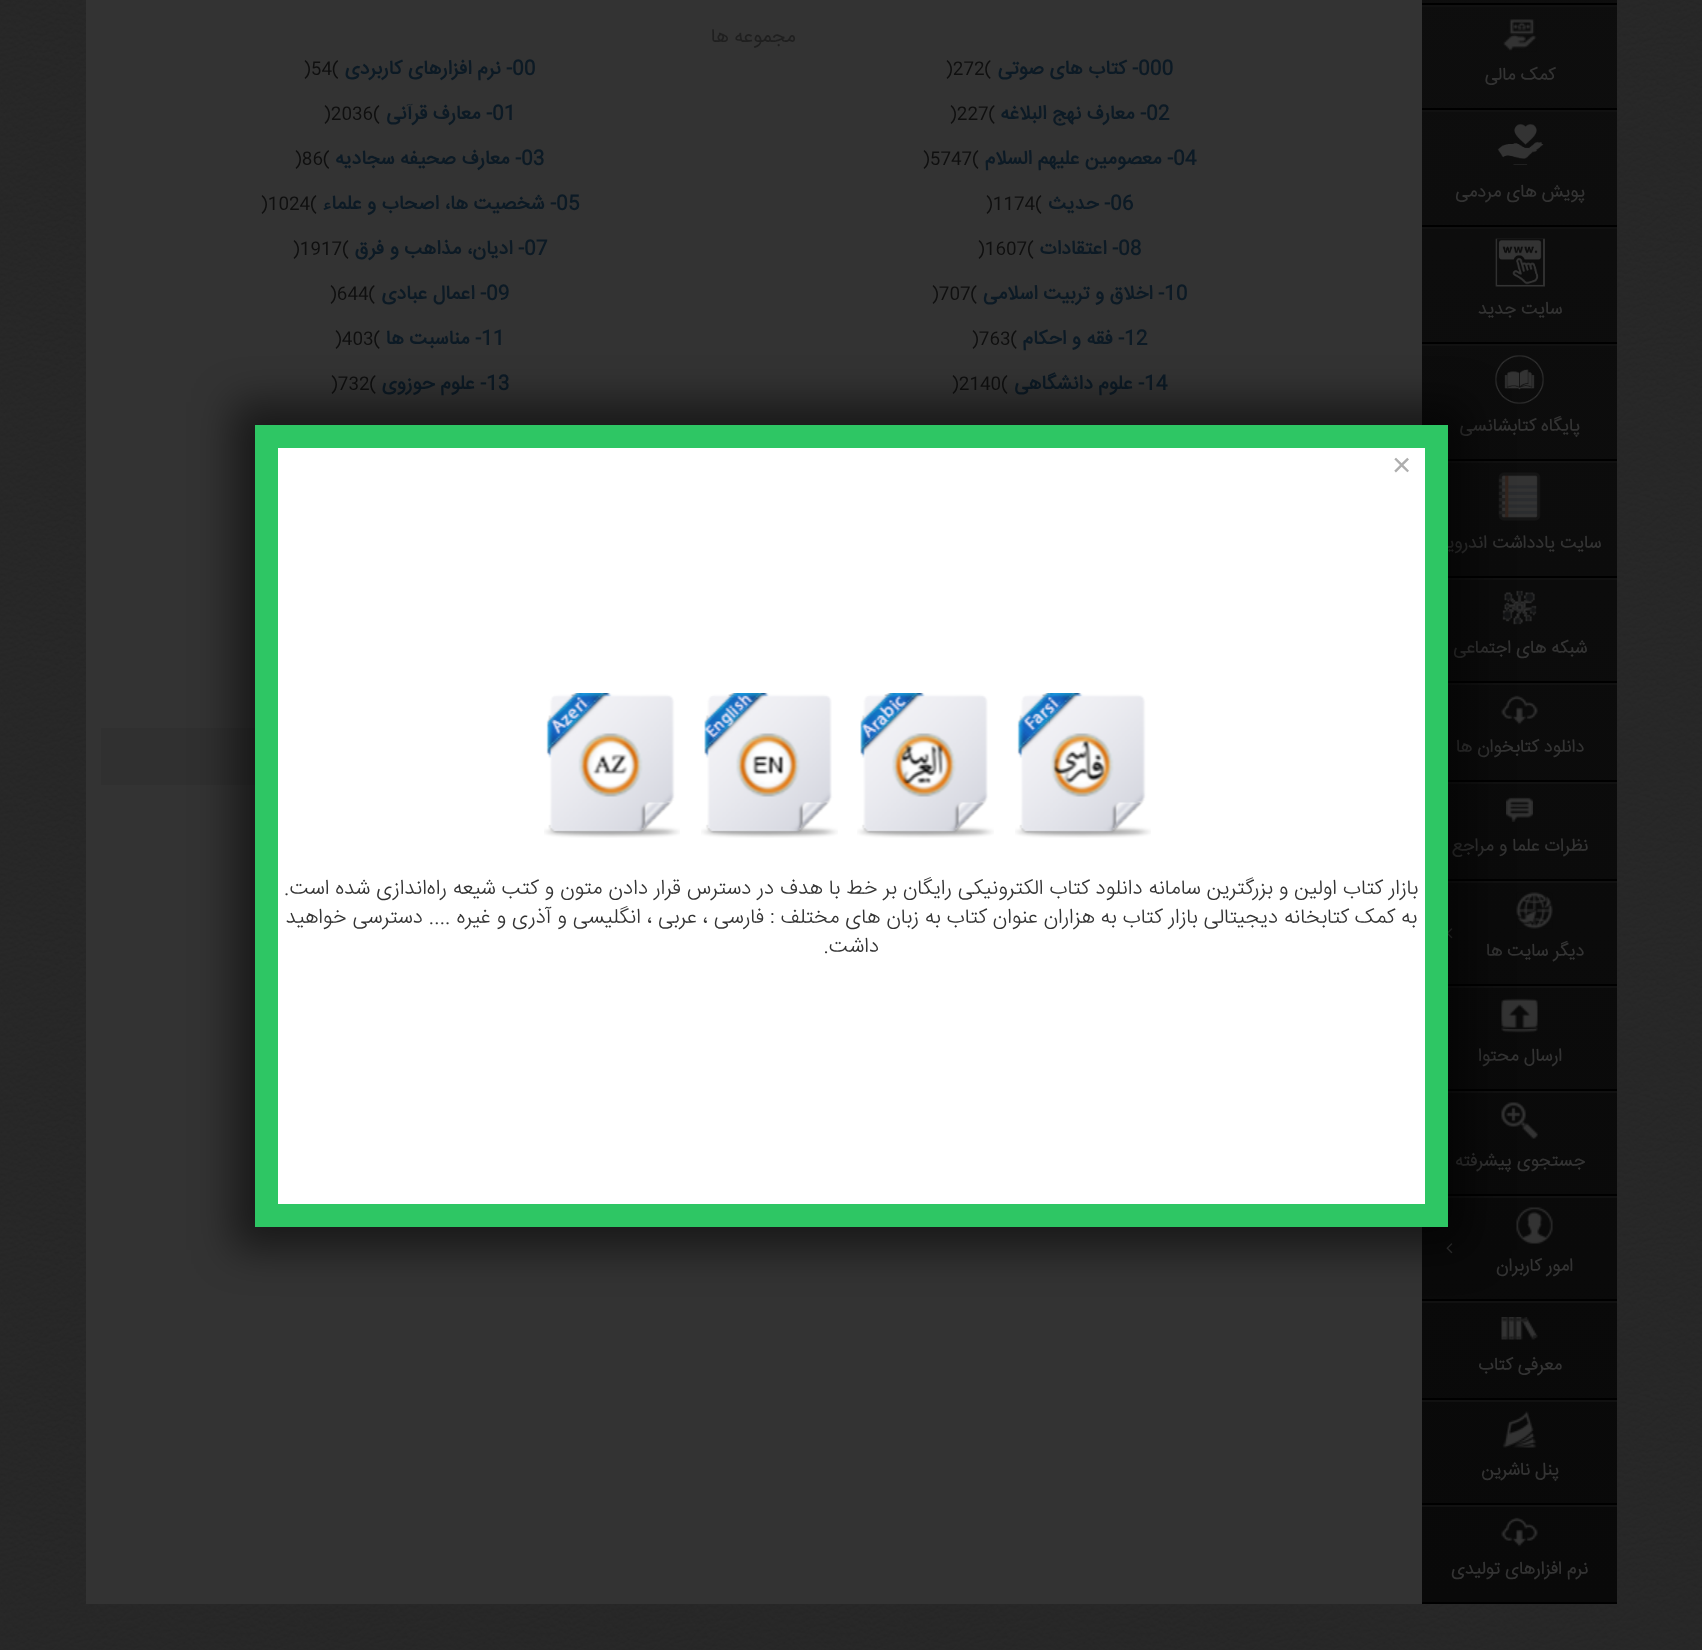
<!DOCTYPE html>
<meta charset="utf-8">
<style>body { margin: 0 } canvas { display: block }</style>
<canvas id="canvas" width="1702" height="1650"></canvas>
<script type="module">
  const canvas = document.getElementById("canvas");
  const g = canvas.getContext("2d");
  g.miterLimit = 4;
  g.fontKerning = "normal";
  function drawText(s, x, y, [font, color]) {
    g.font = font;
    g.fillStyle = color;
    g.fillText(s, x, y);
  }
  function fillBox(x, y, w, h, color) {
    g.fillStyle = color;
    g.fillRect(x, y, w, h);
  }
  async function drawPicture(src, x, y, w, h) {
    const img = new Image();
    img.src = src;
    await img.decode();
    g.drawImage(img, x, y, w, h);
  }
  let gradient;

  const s1 = ["bold 18px 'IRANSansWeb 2'", "#333333"];
  const s2 = ["19.5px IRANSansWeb", "#1F1F1F"];
  const s3 = ["bold 19.5px IRANSansWeb", "#0C1A25"];
  const s4 = ["17.5px IRANSansWeb", "#0F0F0F"];
  const s5 = ["33px Liberation Sans", "#AEAEAE"];
  const s6 = ["300 21px IRANSansWeb", "#333333"];

  fillBox(0, 0, 1702, 1650, "#2C2C2C");
  await drawPicture("pic1.png", 0, 0, 1702, 1650);
  fillBox(86, 0, 1336, 1604, "#333333");
  gradient = g.createLinearGradient(1519, -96, 1520, 1604);
  gradient.addColorStop(0, "#0E0E0E");
  gradient.addColorStop(1, "#090909");
  g.fillStyle = gradient;
  g.fillRect(1422, 0, 195, 1602);
  fillBox(1422, 3, 195, 2, "#000000");
  fillBox(1422, 5, 195, 2, "#111111");
  fillBox(1422, 108, 195, 2, "#000000");
  await drawPicture("pic2.png", 1503, 19, 34, 33);
  g.direction = "rtl";
  drawText("کمک مالی", 1555, 80, s1);
  fillBox(1422, 110, 195, 2, "#111111");
  fillBox(1422, 225, 195, 2, "#000000");
  await drawPicture("pic3.png", 1497, 123, 47, 42);
  drawText("پویش های مردمی", 1585, 197, s1);
  fillBox(1422, 227, 195, 2, "#111111");
  fillBox(1422, 342, 195, 2, "#000000");
  await drawPicture("pic4.png", 1495, 238, 50, 49);
  drawText("سایت جدید", 1562, 314, s1);
  fillBox(1422, 344, 195, 2, "#111111");
  fillBox(1448, 459, 169, 2, "#000000");
  await drawPicture("pic5.png", 1495, 355, 49, 49);
  drawText("پایگاه کتابشانسی", 1580, 431, s1);
  fillBox(1448, 461, 169, 2, "#111111");
  fillBox(1448, 576, 169, 2, "#000000");
  await drawPicture("pic6.png", 1498, 472, 43, 49);
  drawText("سایت یادداشت اندروید", 1601, 548, s1);
  fillBox(1448, 578, 169, 2, "#111111");
  fillBox(1448, 681, 169, 2, "#000000");
  await drawPicture("pic7.png", 1502, 590, 35, 35);
  drawText("شبکه های اجتماعی", 1587, 653, s1);
  fillBox(1448, 683, 169, 2, "#111111");
  fillBox(1448, 780, 169, 2, "#000000");
  await drawPicture("pic8.png", 1501, 695, 37, 30);
  drawText("دانلود کتابخوان ها", 1584, 752, s1);
  fillBox(1448, 782, 169, 2, "#111111");
  fillBox(1448, 879, 169, 2, "#000000");
  await drawPicture("pic9.png", 1506, 797, 27, 25);
  drawText("نظرات علما و مراجع", 1588, 851, s1);
  fillBox(1448, 881, 169, 2, "#111111");
  fillBox(1448, 984, 169, 2, "#000000");
  await drawPicture("pic10.png", 1516, 892, 37, 37);
  await drawPicture("pic11.png", 1448, 928, 5, 11);
  drawText("دیگر سایت ها", 1584, 956, s1);
  fillBox(1448, 986, 169, 2, "#111111");
  fillBox(1448, 1089, 169, 2, "#000000");
  await drawPicture("pic12.png", 1501, 998, 37, 35);
  drawText("ارسال محتوا", 1562, 1061, s1);
  fillBox(1448, 1091, 169, 2, "#111111");
  fillBox(1448, 1194, 169, 2, "#000000");
  await drawPicture("pic13.png", 1501, 1102, 37, 37);
  drawText("جستجوی پیشرفته", 1585, 1166, s1);
  fillBox(1448, 1196, 169, 2, "#111111");
  fillBox(1422, 1299, 195, 2, "#000000");
  await drawPicture("pic14.png", 1516, 1207, 37, 37);
  await drawPicture("pic15.png", 1446, 1243, 7, 11);
  drawText("امور کاربران", 1573, 1271, s1);
  fillBox(1422, 1301, 195, 2, "#111111");
  fillBox(1422, 1398, 195, 2, "#000000");
  await drawPicture("pic16.png", 1501, 1317, 37, 23);
  drawText("معرفی کتاب", 1562, 1370, s1);
  fillBox(1422, 1400, 195, 2, "#111111");
  fillBox(1422, 1503, 195, 2, "#000000");
  await drawPicture("pic17.png", 1502, 1411, 35, 37);
  drawText("پنل ناشرین", 1559, 1475, s1);
  fillBox(1422, 1505, 195, 2, "#111111");
  fillBox(1422, 1602, 195, 2, "#000000");
  await drawPicture("pic18.png", 1501, 1517, 37, 30);
  drawText("نرم افزارهای تولیدی", 1588, 1574, s1);
  drawText("مجموعه ها", 796, 42, s2);
  g.direction = "ltr";
  drawText("000", 1138, 74, s3);
  g.direction = "rtl";
  drawText("- کتاب های صوتی", 1138, 74, s3);
  g.direction = "ltr";
  drawText(")272(", 946, 74, s4);
  drawText("00", 512, 74, s3);
  g.direction = "rtl";
  drawText("- نرم افزارهای کاربردی", 512, 74, s3);
  g.direction = "ltr";
  drawText(")54(", 304, 74, s4);
  drawText("02", 1146, 119, s3);
  g.direction = "rtl";
  drawText("- معارف نهج البلاغه", 1146, 119, s3);
  g.direction = "ltr";
  drawText(")227(", 950, 119, s4);
  drawText("01", 492, 119, s3);
  g.direction = "rtl";
  drawText("- معارف قرآنی", 492, 119, s3);
  g.direction = "ltr";
  drawText(")2036(", 324, 119, s4);
  drawText("04", 1173, 164, s3);
  g.direction = "rtl";
  drawText("- معصومین علیهم السلام", 1173, 164, s3);
  g.direction = "ltr";
  drawText(")5747(", 923, 164, s4);
  drawText("03", 521, 164, s3);
  g.direction = "rtl";
  drawText("- معارف صحیفه سجادیه", 521, 164, s3);
  g.direction = "ltr";
  drawText(")86(", 295, 164, s4);
  drawText("06", 1110, 209, s3);
  g.direction = "rtl";
  drawText("- حدیث", 1110, 209, s3);
  g.direction = "ltr";
  drawText(")1174(", 986, 209, s4);
  drawText("05", 556, 209, s3);
  g.direction = "rtl";
  drawText("- شخصیت ها، اصحاب و علماء", 556, 209, s3);
  g.direction = "ltr";
  drawText(")1024(", 261, 209, s4);
  drawText("08", 1118, 254, s3);
  g.direction = "rtl";
  drawText("- اعتقادات", 1118, 254, s3);
  g.direction = "ltr";
  drawText(")1607(", 978, 254, s4);
  drawText("07", 524, 254, s3);
  g.direction = "rtl";
  drawText("- ادیان، مذاهب و فرق", 524, 254, s3);
  g.direction = "ltr";
  drawText(")1917(", 293, 254, s4);
  drawText("10", 1164, 299, s3);
  g.direction = "rtl";
  drawText("- اخلاق و تربیت اسلامی", 1164, 299, s3);
  g.direction = "ltr";
  drawText(")707(", 932, 299, s4);
  drawText("09", 486, 299, s3);
  g.direction = "rtl";
  drawText("- اعمال عبادی", 486, 299, s3);
  g.direction = "ltr";
  drawText(")644(", 330, 299, s4);
  drawText("12", 1124, 344, s3);
  g.direction = "rtl";
  drawText("- فقه و احكام", 1124, 344, s3);
  g.direction = "ltr";
  drawText(")763(", 972, 344, s4);
  drawText("11", 481, 344, s3);
  g.direction = "rtl";
  drawText("- مناسبت ها", 481, 344, s3);
  g.direction = "ltr";
  drawText(")403(", 335, 344, s4);
  drawText("14", 1144, 389, s3);
  g.direction = "rtl";
  drawText("- علوم دانشگاهی", 1144, 389, s3);
  g.direction = "ltr";
  drawText(")2140(", 952, 389, s4);
  drawText("13", 486, 389, s3);
  g.direction = "rtl";
  drawText("- علوم حوزوی", 486, 389, s3);
  g.direction = "ltr";
  drawText(")732(", 331, 389, s4);
  fillBox(101, 728, 154, 57, "#303030");
  g.fillStyle = "rgba(0, 0, 0, 0.5)";
  g.filter = "blur(20px)";
  g.beginPath();
  g.rect(233, 402, 1237, 848);
  g.fill();
  g.filter = "none";
  g.fillStyle = "#FFFFFF";
  g.beginPath();
  g.rect(266.5, 436.5, 1170, 779);
  g.fill();
  g.strokeStyle = "#2EC664";
  g.lineWidth = 23;
  g.stroke();
  drawText("×", 1392, 476, s5);
  await drawPicture("pic19.png", 1015, 693, 136, 145);
  await drawPicture("pic20.png", 857, 693, 137, 145);
  await drawPicture("pic21.png", 701, 693, 137, 145);
  await drawPicture("pic22.png", 544, 693, 136, 145);
  g.direction = "rtl";
  drawText("بازار کتاب اولین و بزرگترین سامانه دانلود کتاب الکترونیکی رایگان بر خط با هدف در دسترس قرار دادن متون و کتب شیعه راه‌اندازی شده است.", 1418, 894, s6);
  drawText("به کمک کتابخانه دیجیتالی بازار کتاب به هزاران عنوان کتاب به زبان های مختلف : فارسی ، عربی ، انگلیسی و آذری و غیره .... دسترسی خواهید", 1417, 923, s6);
  drawText("داشت.", 879, 952, s6);
</script>
